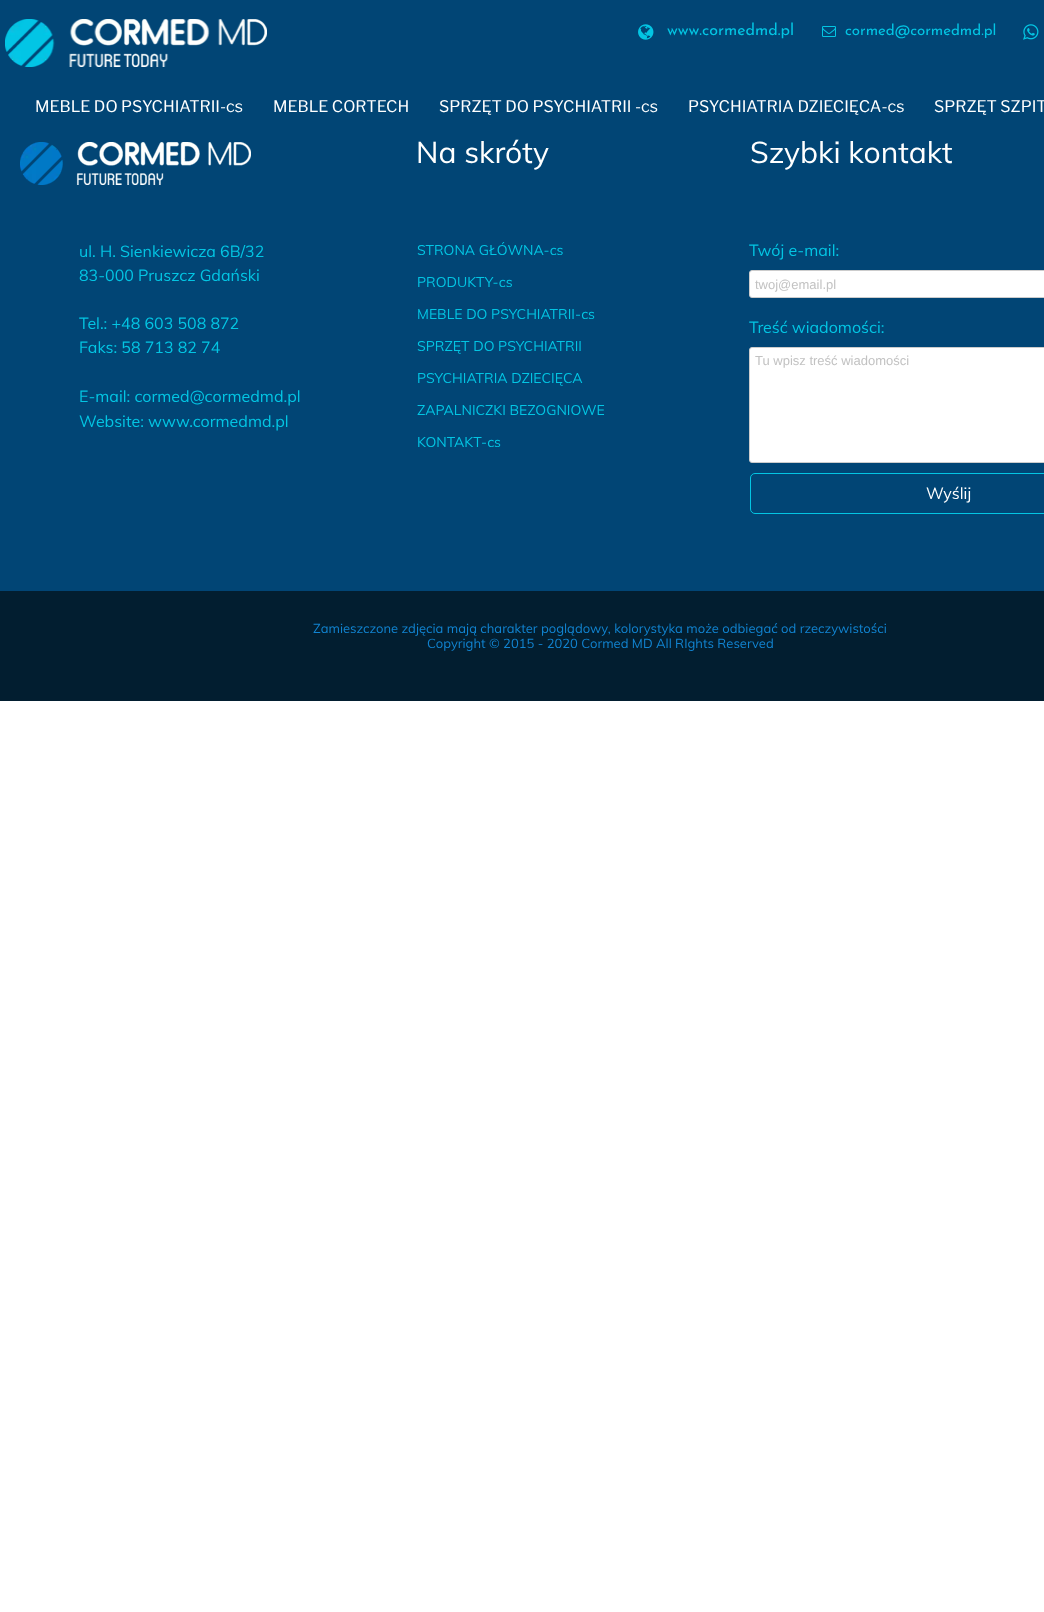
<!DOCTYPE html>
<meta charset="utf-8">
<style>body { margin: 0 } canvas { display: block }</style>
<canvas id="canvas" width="1044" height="1612"></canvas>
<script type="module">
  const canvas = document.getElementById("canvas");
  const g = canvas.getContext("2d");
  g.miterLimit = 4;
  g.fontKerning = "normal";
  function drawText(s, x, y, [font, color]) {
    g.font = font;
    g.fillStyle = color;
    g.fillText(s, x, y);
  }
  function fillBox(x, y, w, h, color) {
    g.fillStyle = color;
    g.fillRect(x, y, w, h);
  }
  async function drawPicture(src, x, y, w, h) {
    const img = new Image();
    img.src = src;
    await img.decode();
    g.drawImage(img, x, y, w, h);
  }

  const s1 = ["100 16px Josefin Sans", "#03C5E3"];
  const s2 = ["100 15px Josefin Sans", "#03C5E3"];
  const s3 = ["100 16px Libre Franklin", "#FFFFFF"];
  const s4 = ["30px Muli", "#FFFFFF"];
  const s5 = ["16px Muli", "#03C5E3"];
  const s6 = ["14px Muli", "#03C5E3"];
  const s7 = ["13px Liberation Sans", "#C2C2C2"];
  const s8 = ["16px Muli", "#FFFFFF"];
  const s9 = ["13px Muli", "#1184D1"];

  fillBox(0, 0, 1044, 1612, "#FFFFFF");
  fillBox(0, 0, 1044, 591, "#014575");
  await drawPicture("pic1.png", 5, 19, 262, 48);
  await drawPicture("pic2.png", 638, 24, 16, 16);
  drawText("www.cormedmd.pl", 667, 35, s1);
  await drawPicture("pic3.png", 822, 26, 14, 11);
  drawText("cormed@cormedmd.pl", 845, 35, s2);
  await drawPicture("pic4.png", 1023, 24, 16, 16);
  drawText("MEBLE DO PSYCHIATRII-cs", 35, 112, s3);
  drawText("MEBLE CORTECH", 273, 112, s3);
  drawText("SPRZĘT DO PSYCHIATRII -cs", 439, 112, s3);
  drawText("PSYCHIATRIA DZIECIĘCA-cs", 688, 112, s3);
  drawText("SPRZĘT SZPIT", 934, 112, s3);
  await drawPicture("pic5.png", 20, 142, 231, 43);
  drawText("Na skróty", 416, 163, s4);
  drawText("Szybki kontakt", 750, 163, s4);
  drawText("ul. H. Sienkiewicza 6B/32", 79, 257, s5);
  drawText("83-000 Pruszcz Gdański", 79, 281, s5);
  drawText("Tel.: +48 603 508 872", 79, 329, s5);
  drawText("Faks: 58 713 82 74", 79, 353, s5);
  drawText("E-mail: cormed@cormedmd.pl", 79, 402, s5);
  drawText("Website: www.cormedmd.pl", 79, 427, s5);
  drawText("STRONA GŁÓWNA-cs", 417, 255, s6);
  drawText("PRODUKTY-cs", 417, 287, s6);
  drawText("MEBLE DO PSYCHIATRII-cs", 417, 319, s6);
  drawText("SPRZĘT DO PSYCHIATRII", 417, 351, s6);
  drawText("PSYCHIATRIA DZIECIĘCA", 417, 383, s6);
  drawText("ZAPALNICZKI BEZOGNIOWE", 417, 415, s6);
  drawText("KONTAKT-cs", 417, 447, s6);
  drawText("Twój e-mail:", 749, 256, s5);
  g.fillStyle = "#FFFFFF";
  g.beginPath();
  g.roundRect(749.5, 270.5, 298, 27, 2.5);
  g.fill();
  g.strokeStyle = "#CCCCCC";
  g.stroke();
  drawText("twoj@email.pl", 755, 289, s7);
  drawText("Treść wiadomości:", 749, 333, s5);
  g.fillStyle = "#FFFFFF";
  g.beginPath();
  g.roundRect(749.5, 347.5, 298, 115, 2.5);
  g.fill();
  g.stroke();
  drawText("Tu wpisz treść wiadomości", 755, 365, s7);
  g.beginPath();
  g.roundRect(750.5, 473.5, 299, 40, 4.5);
  g.strokeStyle = "#03C5E3";
  g.stroke();
  drawText("Wyślij", 926, 499, s8);
  fillBox(0, 591, 1044, 110, "#021E30");
  drawText("Zamieszczone zdjęcia mają charakter poglądowy, kolorystyka może odbiegać od rzeczywistości", 313, 633, s9);
  drawText("Copyright © 2015 - 2020 Cormed MD All RIghts Reserved", 427, 648, s9);
</script>
